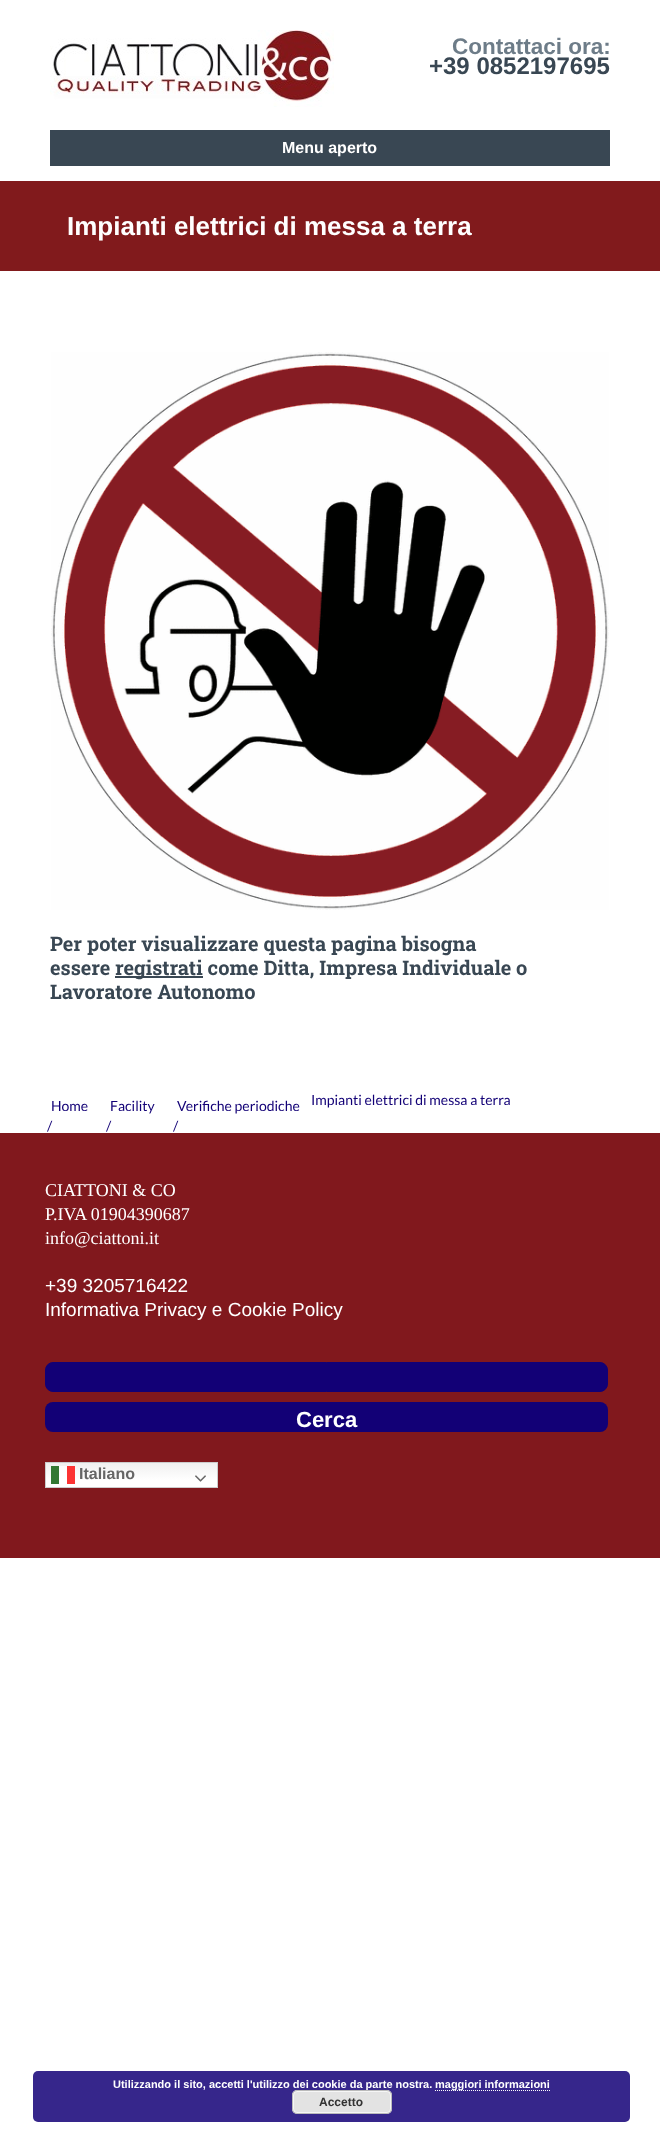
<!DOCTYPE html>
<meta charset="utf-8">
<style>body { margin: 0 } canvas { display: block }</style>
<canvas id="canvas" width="660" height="2152"></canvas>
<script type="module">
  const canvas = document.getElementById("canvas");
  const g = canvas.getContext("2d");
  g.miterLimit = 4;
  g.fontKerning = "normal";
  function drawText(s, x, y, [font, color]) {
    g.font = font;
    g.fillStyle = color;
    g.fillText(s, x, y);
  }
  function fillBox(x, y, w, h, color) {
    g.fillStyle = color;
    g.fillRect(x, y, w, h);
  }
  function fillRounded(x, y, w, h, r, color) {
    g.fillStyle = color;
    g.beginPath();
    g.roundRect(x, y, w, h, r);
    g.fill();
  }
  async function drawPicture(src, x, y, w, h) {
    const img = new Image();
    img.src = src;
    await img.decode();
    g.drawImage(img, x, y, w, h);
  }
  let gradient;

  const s1 = ["bold 22.5px Liberation Sans", "#6D7C88"];
  const s2 = ["bold 24px Liberation Sans", "#394753"];
  const s3 = ["bold 16px Liberation Sans", "#FFFFFF"];
  const s4 = ["bold 26px Liberation Sans", "#FFFFFF"];
  const s5 = ["bold 20px Roboto Slab", "#394753"];
  const s6 = ["14px Lato", "#120076"];
  const s7 = ["18px Liberation Serif", "#FFFFFF"];
  const s8 = ["19px Liberation Sans", "#FFFFFF"];
  const s9 = ["bold 22px Liberation Sans", "#FFFFFF"];
  const s10 = ["bold 16px Liberation Sans", "#666666"];
  const s11 = ["bold 11px Liberation Sans", "#FFFFFF"];
  const s12 = ["bold 12px Liberation Sans", "#333333"];

  fillBox(0, 0, 660, 2152, "#FFFFFF");
  await drawPicture("pic1.png", 50, 30, 284, 77);
  drawText("Contattaci ora:", 452, 54, s1);
  drawText("+39 0852197695", 429, 74, s2);
  fillBox(50, 130, 560, 36, "#394753");
  drawText("Menu aperto", 282, 153, s3);
  fillBox(0, 181, 660, 90, "#811A1C");
  drawText("Impianti elettrici di messa a terra", 67, 235, s4);
  await drawPicture("pic2.png", 51, 352, 558, 558);
  drawText("Per poter visualizzare questa pagina bisogna", 50, 951, s5);
  drawText("essere", 50, 975, s5);
  fillBox(115, 976, 88, 2, "#394753");
  drawText("registrati come Ditta, Impresa Individuale o", 115, 975, s5);
  drawText("Lavoratore Autonomo", 50, 999, s5);
  drawText("Home", 51, 1111, s6);
  drawText("/", 47, 1131, s6);
  drawText("Facility", 110, 1111, s6);
  drawText("/", 106, 1131, s6);
  drawText("Verifiche periodiche", 177, 1111, s6);
  drawText("/", 173, 1131, s6);
  drawText("Impianti elettrici di messa a terra", 311, 1105, s6);
  fillBox(0, 1133, 660, 425, "#81181D");
  drawText("CIATTONI & CO", 45, 1196, s7);
  drawText("P.IVA 01904390687", 45, 1220, s7);
  drawText("info@ciattoni.it", 45, 1244, s7);
  drawText("+39 3205716422", 45, 1292, s8);
  drawText("Informativa Privacy e Cookie Policy", 45, 1316, s8);
  g.fillStyle = "#120076";
  g.beginPath();
  g.roundRect(45.5, 1362.5, 562, 29, 7.5);
  g.fill();
  g.strokeStyle = "#120076";
  g.stroke();
  fillRounded(45, 1402, 563, 30, 8, "#120076");
  drawText("Cerca", 296, 1427, s9);
  gradient = g.createLinearGradient(132, 1462, 132, 1488);
  gradient.addColorStop(0, "#EFEFEF");
  gradient.addColorStop(0.7, "#FFFFFF");
  g.fillStyle = gradient;
  g.fillRect(46, 1463, 171, 24);
  gradient = g.createLinearGradient(132, 1462, 132, 1488);
  gradient.addColorStop(0, "#FCFCFC");
  gradient.addColorStop(0.7, "#FFFFFF");
  g.fillStyle = gradient;
  g.fillRect(59, 1466, 8, 18);
  g.strokeStyle = "#CCCCCC";
  g.strokeRect(45.5, 1462.5, 172, 25);
  fillBox(51, 1466, 8, 18, "#337833");
  fillBox(67, 1466, 8, 18, "#FC3333");
  drawText("Italiano", 79, 1479, s10);
  await drawPicture("pic3.png", 195, 1475, 11, 7);
  fillRounded(33, 2071, 597, 51, 5, "#36268B");
  drawText("Utilizzando il sito, accetti l'utilizzo dei cookie da parte nostra.", 113, 2088, s11);
  g.beginPath();
  g.moveTo(435, 2090.5);
  g.lineTo(550, 2090.5);
  g.strokeStyle = "#FFFFFF";
  g.setLineDash([1, 1]);
  g.stroke();
  drawText("maggiori informazioni", 435, 2088, s11);
  fillRounded(292, 2090, 100, 24, 5, "#E3E3E3");
  g.beginPath();
  g.roundRect(293.5, 2091.5, 97, 21, 3.5);
  g.strokeStyle = "#F6F6F6";
  g.setLineDash([]);
  g.stroke();
  g.beginPath();
  g.roundRect(292.5, 2090.5, 99, 23, 4.5);
  g.strokeStyle = "#BBBBBB";
  g.stroke();
  drawText("Accetto", 319, 2106, s12);
</script>
